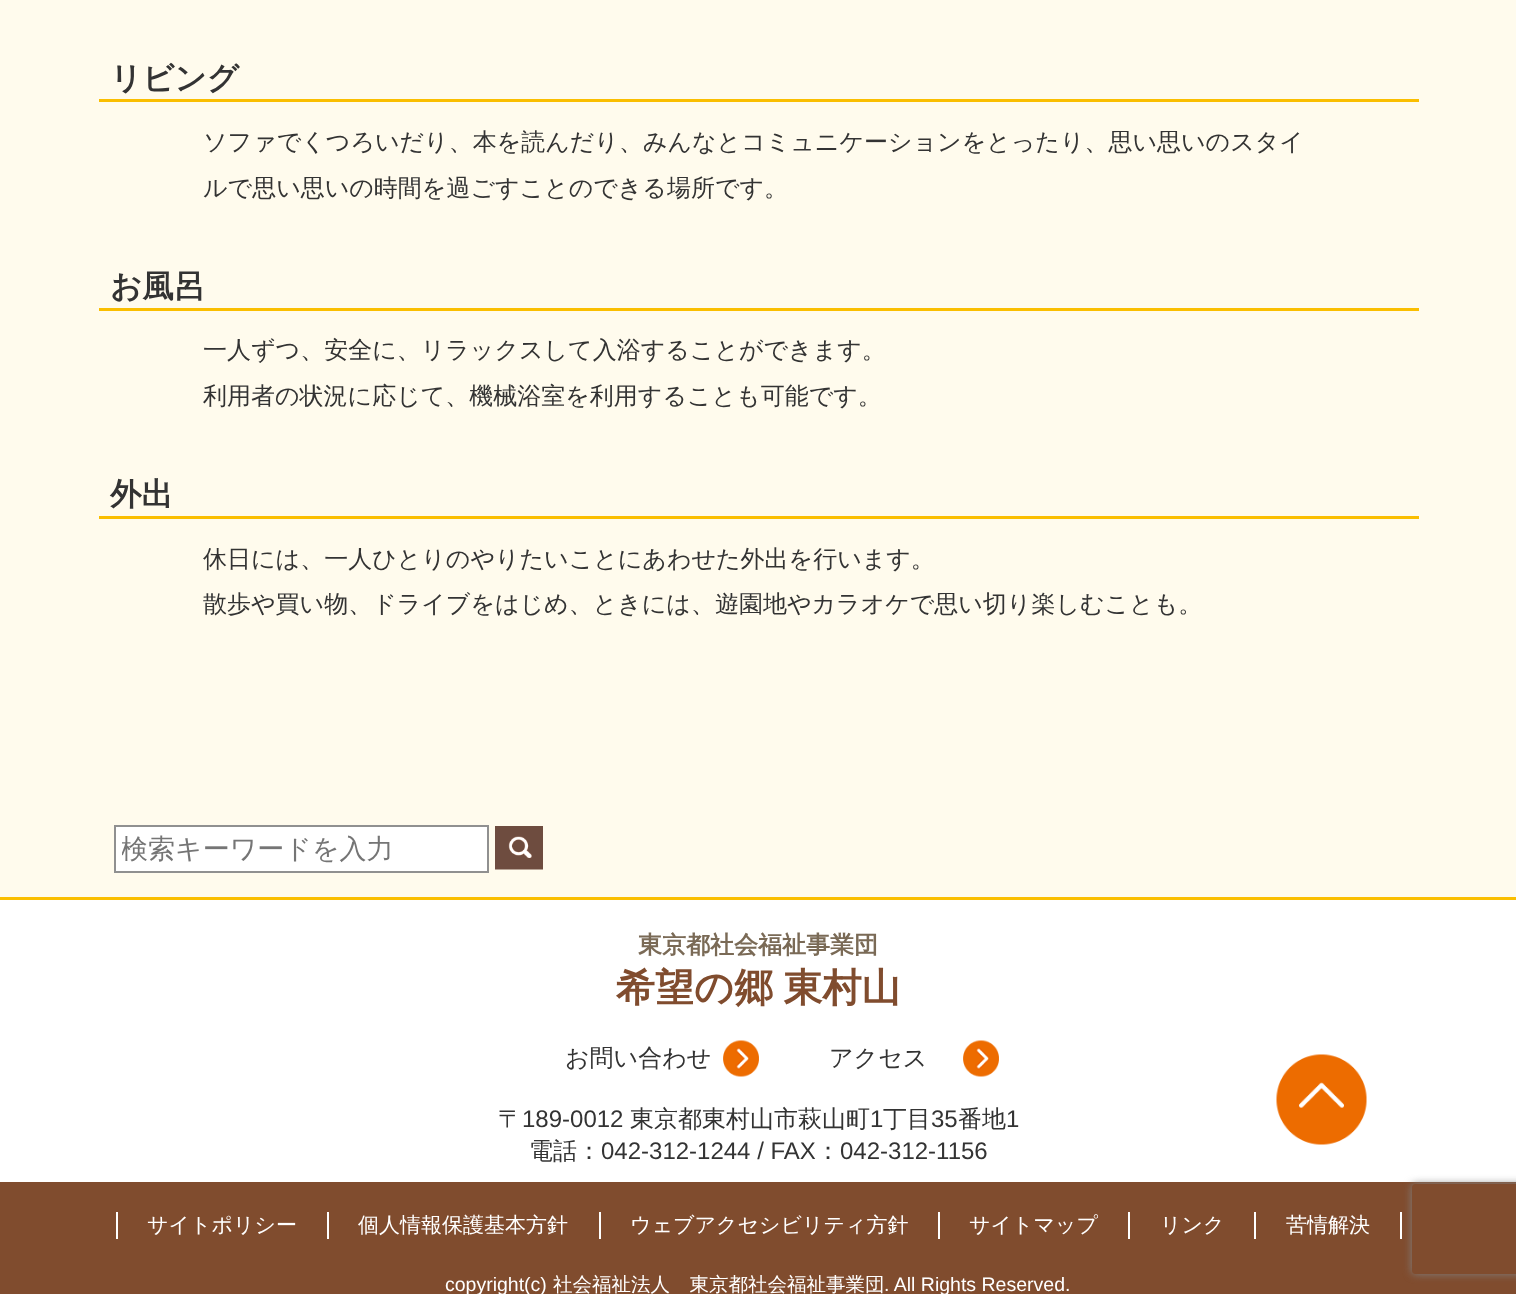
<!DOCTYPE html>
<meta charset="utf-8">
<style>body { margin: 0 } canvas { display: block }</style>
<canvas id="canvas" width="1516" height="1294"></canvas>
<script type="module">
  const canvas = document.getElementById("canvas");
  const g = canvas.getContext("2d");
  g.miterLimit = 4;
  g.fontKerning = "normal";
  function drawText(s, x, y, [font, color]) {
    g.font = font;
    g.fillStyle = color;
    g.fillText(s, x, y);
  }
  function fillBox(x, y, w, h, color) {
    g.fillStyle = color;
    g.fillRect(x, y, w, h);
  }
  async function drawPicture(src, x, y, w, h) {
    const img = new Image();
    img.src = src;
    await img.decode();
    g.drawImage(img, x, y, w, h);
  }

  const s1 = ["bold 31.5px WenQuanYi Zen Hei", "#333333"];
  const s2 = ["500 24px WenQuanYi Zen Hei", "#333333"];
  const s3 = ["500 27px WenQuanYi Zen Hei", "#757575"];
  const s4 = ["bold 24px WenQuanYi Zen Hei", "#7A6A56"];
  const s5 = ["bold 39px WenQuanYi Zen Hei", "#804C2E"];
  const s6 = ["24px Liberation Sans", "#333333"];
  const s7 = ["500 21px WenQuanYi Zen Hei", "#FFFFFF"];
  const s8 = ["19.5px Liberation Sans", "#FFFFFF"];
  const s9 = ["500 19.5px WenQuanYi Zen Hei", "#FFFFFF"];

  fillBox(0, 0, 1516, 1294, "#FFFFFF");
  fillBox(0, 0, 1516, 897, "#FFFBED");
  fillBox(99, 99, 1320, 3, "#FABE00");
  drawText("リビング", 110, 89, s1);
  drawText("ソファでくつろいだり、本を読んだり、みんなとコミュニケーションをとったり、思い思いのスタイ", 203, 150, s2);
  drawText("ルで思い思いの時間を過ごすことのできる場所です。", 203, 196, s2);
  fillBox(99, 308, 1320, 3, "#FABE00");
  drawText("お風呂", 110, 297, s1);
  drawText("一人ずつ、安全に、リラックスして入浴することができます。", 203, 358, s2);
  drawText("利用者の状況に応じて、機械浴室を利用することも可能です。", 203, 404, s2);
  fillBox(99, 516, 1320, 3, "#FABE00");
  drawText("外出", 110, 505, s1);
  drawText("休日には、一人ひとりのやりたいことにあわせた外出を行います。", 203, 567, s2);
  drawText("散歩や買い物、ドライブをはじめ、ときには、遊園地やカラオケで思い切り楽しむことも。", 203, 612, s2);
  g.fillStyle = "#FFFFFF";
  g.beginPath();
  g.rect(115, 826, 373, 46);
  g.fill();
  g.strokeStyle = "#909090";
  g.lineWidth = 2;
  g.stroke();
  g.save();
  g.beginPath();
  g.rect(122, 831, 360, 36);
  g.clip();
  drawText("検索キーワードを入力", 121, 858, s3);
  g.restore();
  await drawPicture("pic1.png", 495, 826, 48, 44);
  drawText("東京都社会福祉事業団", 638, 953, s4);
  g.wordSpacing = "-1px";
  drawText("希望の郷 東村山", 616, 1001, s5);
  await drawPicture("pic2.png", 723, 1040, 36, 37);
  g.wordSpacing = "0px";
  drawText("お問い合わせ", 565, 1066, s2);
  await drawPicture("pic2.png", 963, 1040, 36, 37);
  drawText("アクセス", 829, 1066, s2);
  drawText("〒", 498, 1127, s2);
  drawText("189-0012", 522, 1127, s6);
  drawText("東京都東村山市萩山町", 630, 1127, s2);
  drawText("1", 870, 1127, s6);
  drawText("丁目", 883, 1127, s2);
  drawText("35", 931, 1127, s6);
  drawText("番地", 958, 1127, s2);
  drawText("1", 1006, 1127, s6);
  drawText("電話：", 529, 1159, s2);
  drawText("042-312-1244 / FAX", 601, 1159, s6);
  drawText("：", 816, 1159, s2);
  drawText("042-312-1156", 840, 1159, s6);
  fillBox(0, 1182, 1516, 112, "#804C2E");
  fillBox(116, 1212, 2, 27, "#FFFFFF");
  drawText("サイトポリシー", 147, 1232, s7);
  fillBox(327, 1212, 2, 27, "#FFFFFF");
  drawText("個人情報保護基本方針", 358, 1232, s7);
  fillBox(599, 1212, 2, 27, "#FFFFFF");
  drawText("ウェブアクセシビリティ方針", 630, 1232, s7);
  fillBox(938, 1212, 2, 27, "#FFFFFF");
  drawText("サイトマップ", 969, 1232, s7);
  fillBox(1128, 1212, 2, 27, "#FFFFFF");
  drawText("リンク", 1160, 1232, s7);
  fillBox(1400, 1212, 2, 27, "#FFFFFF");
  fillBox(1254, 1212, 2, 27, "#FFFFFF");
  drawText("苦情解決", 1286, 1232, s7);
  drawText("copyright(c)", 445, 1291, s8);
  drawText("社会福祉法人　東京都社会福祉事業団", 553, 1291, s9);
  drawText(". All Rights Reserved.", 884, 1291, s8);
  fillBox(0, 897, 1516, 3, "#FABE00");
  await drawPicture("pic3.png", 1276, 1054, 91, 91);
  g.save();
  g.beginPath();
  g.moveTo(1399, 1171);
  g.lineTo(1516, 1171);
  g.lineTo(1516, 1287);
  g.lineTo(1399, 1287);
  g.closePath();
  g.moveTo(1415, 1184);
  g.lineTo(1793, 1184);
  g.bezierCurveTo(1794.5, 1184, 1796, 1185.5, 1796, 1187);
  g.lineTo(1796, 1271);
  g.bezierCurveTo(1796, 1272.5, 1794.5, 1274, 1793, 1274);
  g.lineTo(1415, 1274);
  g.bezierCurveTo(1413.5, 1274, 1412, 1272.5, 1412, 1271);
  g.lineTo(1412, 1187);
  g.bezierCurveTo(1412, 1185.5, 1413.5, 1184, 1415, 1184);
  g.closePath();
  g.clip("evenodd");
  g.fillStyle = "#808080";
  g.filter = "blur(4px)";
  g.beginPath();
  g.roundRect(1412, 1184, 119, 90, 3);
  g.fill();
  g.filter = "none";
  g.restore();
</script>
